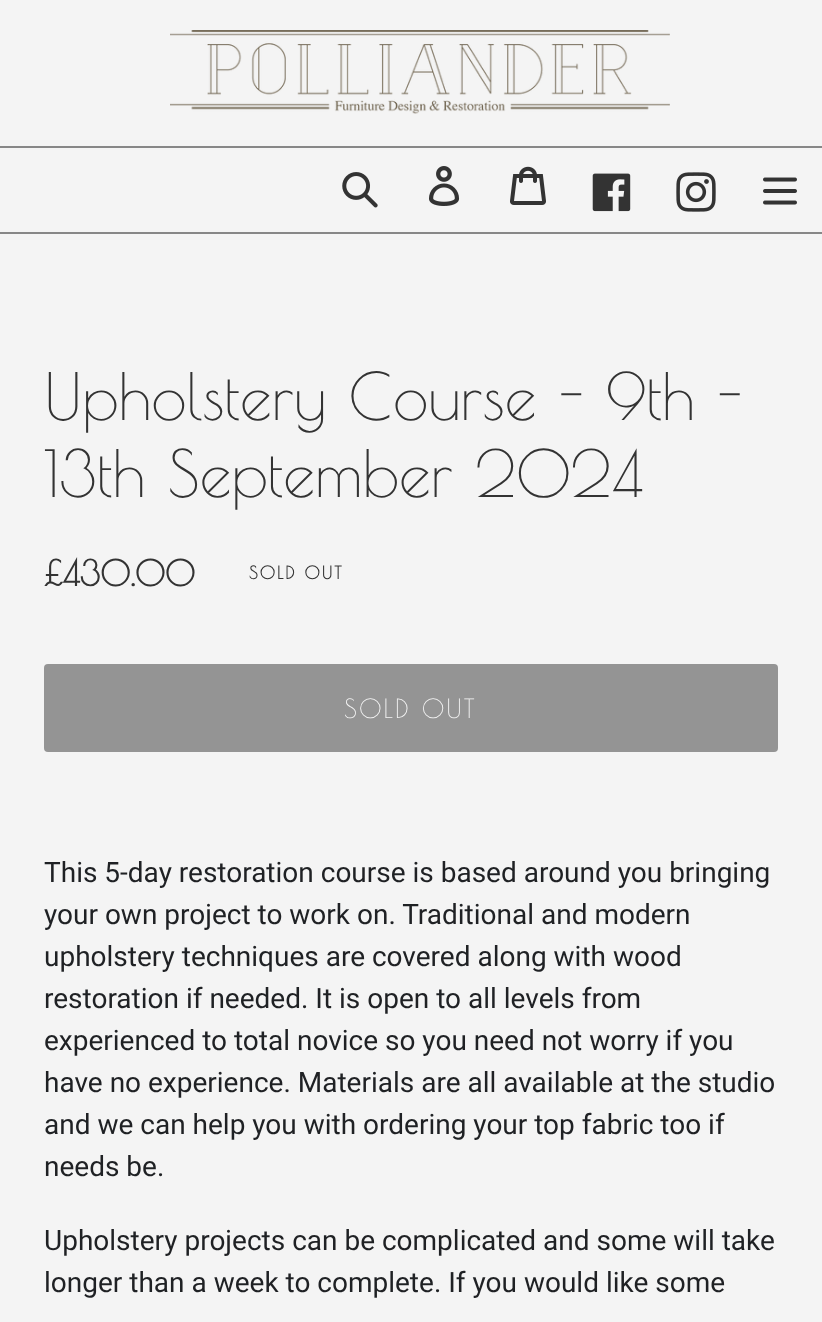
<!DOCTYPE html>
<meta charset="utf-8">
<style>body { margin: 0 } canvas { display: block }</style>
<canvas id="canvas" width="822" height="1322"></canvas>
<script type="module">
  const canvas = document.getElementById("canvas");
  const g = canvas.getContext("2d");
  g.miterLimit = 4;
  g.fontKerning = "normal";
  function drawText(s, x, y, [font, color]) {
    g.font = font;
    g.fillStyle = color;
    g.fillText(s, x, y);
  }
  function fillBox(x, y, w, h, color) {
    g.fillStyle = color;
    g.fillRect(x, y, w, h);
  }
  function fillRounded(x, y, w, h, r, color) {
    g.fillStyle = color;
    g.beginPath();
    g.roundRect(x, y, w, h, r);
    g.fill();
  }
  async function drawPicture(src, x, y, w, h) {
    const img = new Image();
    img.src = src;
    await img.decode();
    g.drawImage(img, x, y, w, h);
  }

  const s1 = ["64px Poiret One", "#333333"];
  const s2 = ["bold 35px Poiret One", "#333333"];
  const s3 = ["bold 17.5px Poiret One", "#333333"];
  const s4 = ["26px Poiret One", "#F4F4F4"];
  const s5 = ["28px Roboto", "#1F2124"];

  fillBox(0, 0, 822, 1322, "#F4F4F4");
  await drawPicture("pic1.png", 170, 30, 500, 84);
  fillBox(0, 146, 822, 2, "#878787");
  await drawPicture("pic2.png", 342, 172, 36, 36);
  await drawPicture("pic3.png", 429, 166, 31, 40);
  await drawPicture("pic4.png", 510, 166, 36, 39);
  await drawPicture("pic5.png", 592, 173, 39, 39);
  await drawPicture("pic6.png", 676, 172, 40, 40);
  await drawPicture("pic7.png", 763, 177, 34, 28);
  fillBox(0, 232, 822, 2, "#878787");
  drawText("Upholstery Course - 9th -", 44, 420, s1);
  drawText("13th September 2024", 44, 497, s1);
  drawText("£430.00", 44, 586, s2);
  g.letterSpacing = "2px";
  drawText("SOLD OUT", 249, 579, s3);
  fillRounded(44, 664, 734, 88, 4, "#949494");
  drawText("SOLD OUT", 344, 718, s4);
  g.letterSpacing = "0px";
  drawText("This 5-day restoration course is based around you bringing", 44, 882, s5);
  drawText("your own project to work on. Traditional and modern", 44, 924, s5);
  drawText("upholstery techniques are covered along with wood", 44, 966, s5);
  drawText("restoration if needed. It is open to all levels from", 44, 1008, s5);
  drawText("experienced to total novice so you need not worry if you", 44, 1050, s5);
  drawText("have no experience. Materials are all available at the studio", 44, 1092, s5);
  drawText("and we can help you with ordering your top fabric too if", 44, 1134, s5);
  drawText("needs be.", 44, 1176, s5);
  drawText("Upholstery projects can be complicated and some will take", 44, 1250, s5);
  drawText("longer than a week to complete. If you would like some", 44, 1292, s5);
</script>
